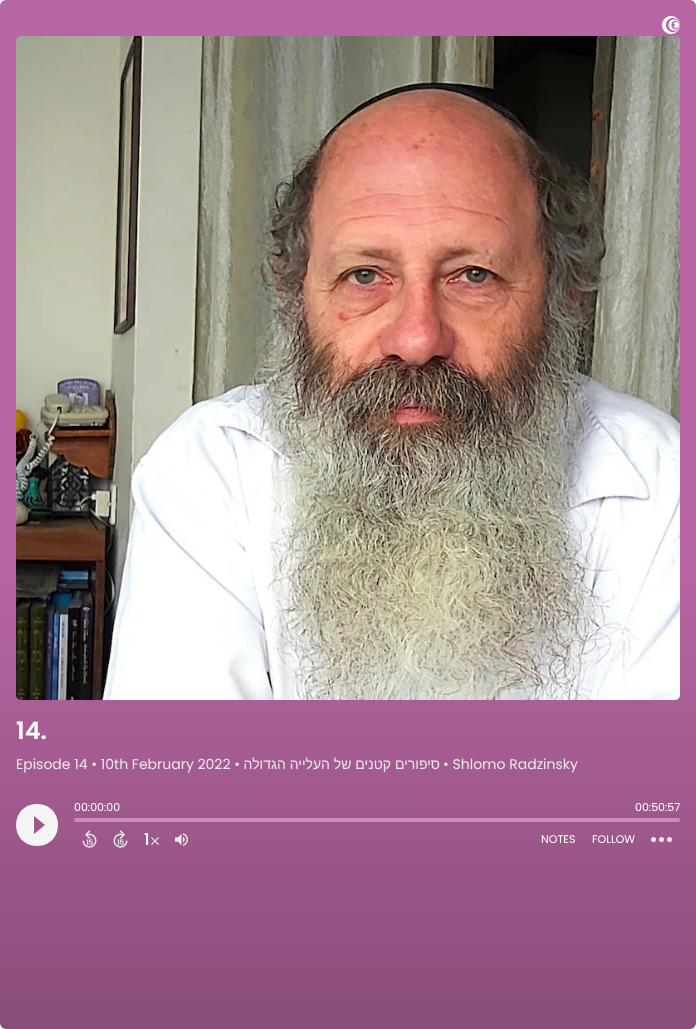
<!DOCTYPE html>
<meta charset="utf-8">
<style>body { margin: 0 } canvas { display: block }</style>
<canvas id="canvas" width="696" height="1029"></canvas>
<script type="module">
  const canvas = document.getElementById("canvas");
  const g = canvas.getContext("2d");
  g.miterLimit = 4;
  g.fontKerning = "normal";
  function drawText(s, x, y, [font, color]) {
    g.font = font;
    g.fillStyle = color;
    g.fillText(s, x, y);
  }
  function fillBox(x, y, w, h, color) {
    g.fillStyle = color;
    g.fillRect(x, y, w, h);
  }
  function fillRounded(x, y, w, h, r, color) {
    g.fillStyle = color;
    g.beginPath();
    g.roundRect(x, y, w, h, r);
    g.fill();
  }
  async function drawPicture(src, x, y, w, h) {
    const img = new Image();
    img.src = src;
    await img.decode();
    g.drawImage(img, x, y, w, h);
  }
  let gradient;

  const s1 = ["600 24px Poppins", "#FFFFFF"];
  const s2 = ["14px Poppins", "#E8E8E8"];
  const s3 = ["14px Liberation Sans", "#E8E8E8"];
  const s4 = ["11px Poppins", "#FFFFFF"];
  const s5 = ["500 16px Poppins", "#FFFFFF"];

  fillBox(0, 0, 696, 1029, "#FFFFFF");
  gradient = g.createLinearGradient(348, 0, 348, 1029);
  gradient.addColorStop(0.54, "#B866A3");
  gradient.addColorStop(1, "#8A4D7A");
  g.fillStyle = gradient;
  g.beginPath();
  g.roundRect(0, 0, 696, 1029, 6);
  g.fill();
  await drawPicture("pic1.png", 662, 16, 18, 18);
  await drawPicture("pic2.png", 16, 36, 664, 664);
  drawText("14.", 16, 739, s1);
  drawText("Episode 14 • 10th February 2022 •", 16, 769, s2);
  g.direction = "rtl";
  drawText("סיפורים קטנים של העלייה הגדולה", 440, 769, s3);
  g.direction = "ltr";
  drawText("• Shlomo Radzinsky", 443, 769, s2);
  g.fillStyle = "#F4F4F4";
  g.beginPath();
  g.moveTo(37, 846);
  g.bezierCurveTo(65, 846, 65, 804, 37, 804);
  g.bezierCurveTo(9, 804, 9, 846, 37, 846);
  g.closePath();
  g.moveTo(34, 834);
  g.lineTo(45, 825);
  g.lineTo(34, 816);
  g.closePath();
  g.fill("evenodd");
  drawText("00:00:00", 74, 811, s4);
  drawText("00:50:57", 635, 811, s4);
  fillRounded(74, 818, 606, 4, 2, "#CA8CBA");
  await drawPicture("pic3.png", 82, 830, 15, 18);
  await drawPicture("pic4.png", 113, 830, 15, 18);
  drawText("1", 144, 845, s5);
  await drawPicture("pic5.png", 151, 837, 8, 8);
  await drawPicture("pic6.png", 175, 833, 13, 13);
  drawText("NOTES", 541, 843, s4);
  drawText("FOLLOW", 592, 843, s4);
  g.fillStyle = "#E8E8E8";
  g.beginPath();
  g.arc(669.5, 839.5, 2.5, 0, Math.PI * 2);
  g.fill();
  g.beginPath();
  g.arc(661.5, 839.5, 2.5, 0, Math.PI * 2);
  g.fill();
  g.beginPath();
  g.arc(653.5, 839.5, 2.5, 0, Math.PI * 2);
  g.fill();
</script>
